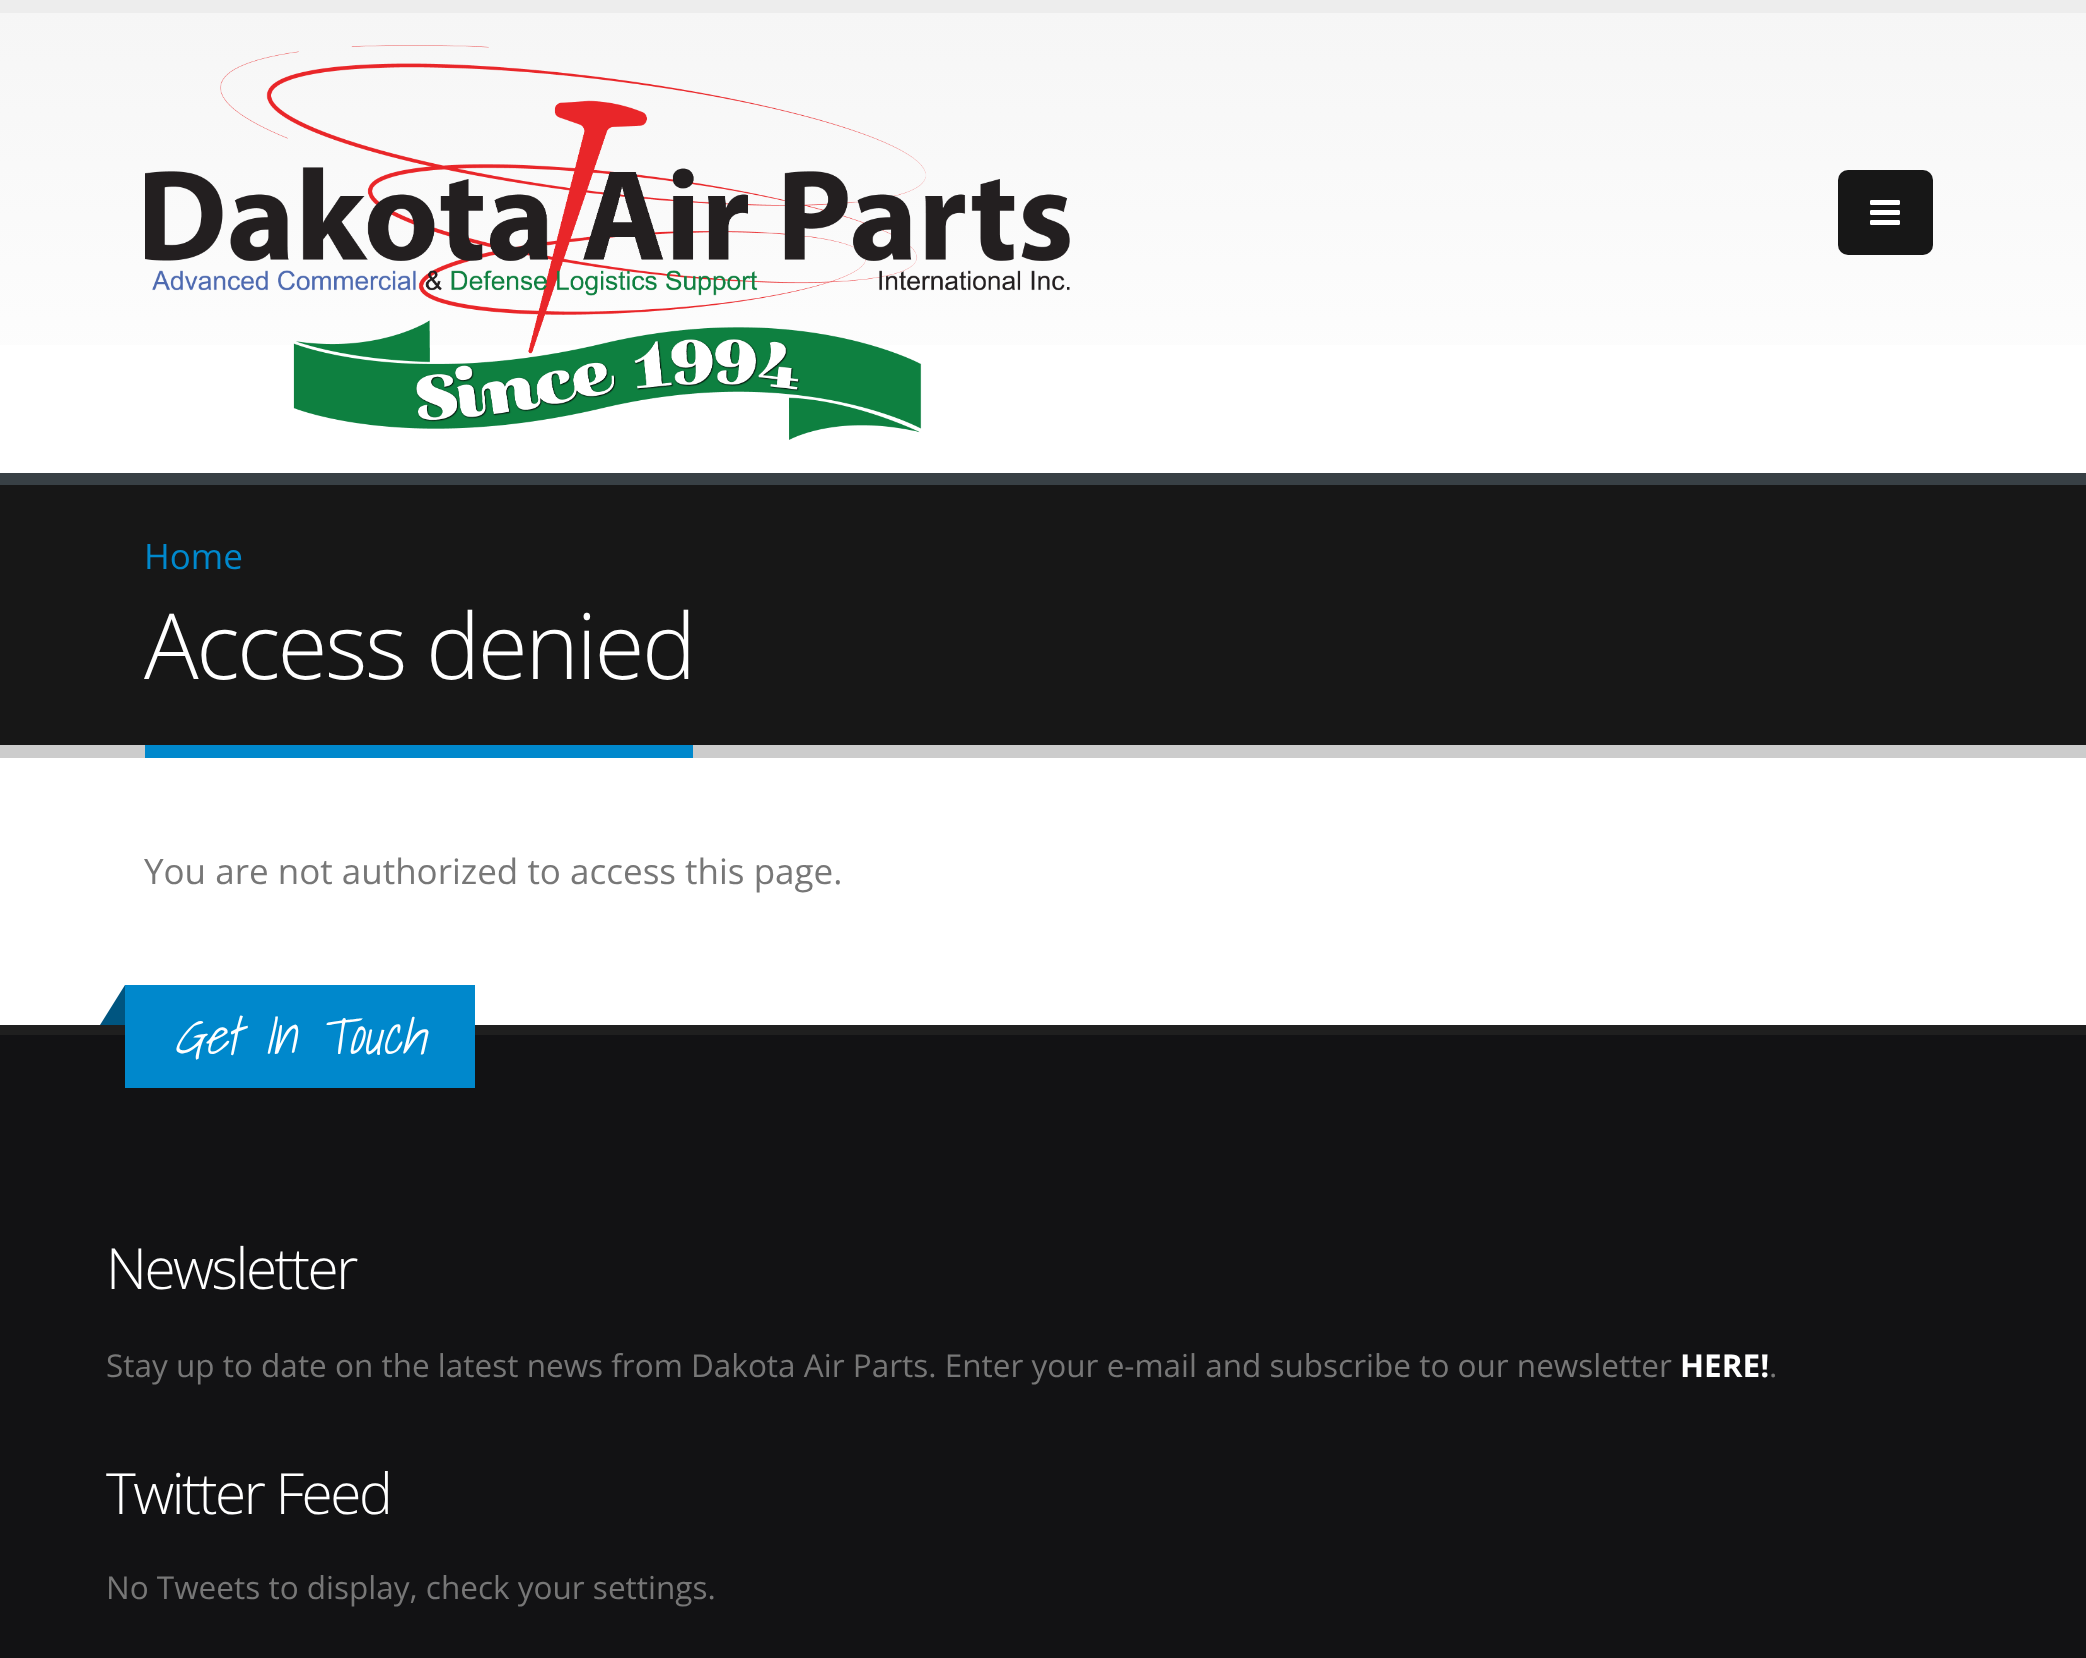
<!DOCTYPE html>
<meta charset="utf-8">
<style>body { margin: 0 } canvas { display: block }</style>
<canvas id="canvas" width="2086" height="1658"></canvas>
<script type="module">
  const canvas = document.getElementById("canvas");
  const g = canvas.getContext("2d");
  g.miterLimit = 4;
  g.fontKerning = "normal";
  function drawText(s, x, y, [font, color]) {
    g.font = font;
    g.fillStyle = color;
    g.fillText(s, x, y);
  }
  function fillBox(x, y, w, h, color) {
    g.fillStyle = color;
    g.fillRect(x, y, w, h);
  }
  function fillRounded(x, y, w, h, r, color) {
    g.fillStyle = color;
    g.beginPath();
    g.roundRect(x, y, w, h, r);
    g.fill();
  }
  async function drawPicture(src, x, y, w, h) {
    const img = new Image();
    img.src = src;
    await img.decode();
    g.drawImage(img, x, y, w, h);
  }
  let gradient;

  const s1 = ["35px Open Sans", "#0088CC"];
  const s2 = ["300 91px Open Sans", "#FFFFFF"];
  const s3 = ["35px Open Sans", "#777777"];
  const s4 = ["italic 300 50.5px Shadows Into Light", "#FFFFFF"];
  const s5 = ["300 56.75px Open Sans", "#FFFFFF"];
  const s6 = ["31.5px Open Sans", "#777777"];
  const s7 = ["bold 31.5px Open Sans", "#FFFFFF"];

  fillBox(0, 0, 2086, 1658, "#FFFFFF");
  gradient = g.createLinearGradient(1044, 12, 1044, 473);
  gradient.addColorStop(0, "#F6F6F6");
  gradient.addColorStop(1, "#FFFFFF");
  g.fillStyle = gradient;
  g.fillRect(0, 13, 2086, 332);
  fillBox(0, 0, 2086, 13, "#EDEDED");
  await drawPicture("pic1.png", 145, 45, 925, 395);
  fillRounded(1838, 170, 95, 85, 10, "#171717");
  await drawPicture("pic2.png", 1870, 200, 30, 25);
  fillBox(0, 485, 2086, 260, "#171717");
  fillBox(0, 473, 2086, 12, "#384045");
  fillBox(0, 745, 2086, 13, "#CCCCCC");
  drawText("Home", 144, 569, s1);
  fillBox(145, 745, 548, 13, "#0088CC");
  g.letterSpacing = "-2.5px";
  drawText("Access denied", 144, 679, s2);
  g.letterSpacing = "0px";
  drawText("You are not authorized to access this page.", 144, 884, s3);
  fillBox(0, 1035, 2086, 623, "#121214");
  fillBox(0, 1025, 2086, 10, "#1F1F1F");
  fillBox(125, 985, 350, 103, "#0088CC");
  g.fillStyle = "#005580";
  g.beginPath();
  g.moveTo(125, 985);
  g.lineTo(125, 1025);
  g.lineTo(100, 1025);
  g.closePath();
  g.fill();
  drawText("Get In Touch", 174, 1054, s4);
  g.letterSpacing = "-2.5px";
  drawText("Newsletter", 106, 1289, s5);
  g.letterSpacing = "0px";
  drawText("Stay up to date on the latest news from Dakota Air Parts. Enter your e-mail and subscribe to our newsletter", 106, 1377, s6);
  drawText("HERE!", 1680, 1377, s7);
  drawText(".", 1769, 1377, s6);
  g.letterSpacing = "-2.5px";
  drawText("Twitter Feed", 106, 1514, s5);
  g.letterSpacing = "0px";
  drawText("No Tweets to display, check your settings.", 106, 1599, s6);
</script>
